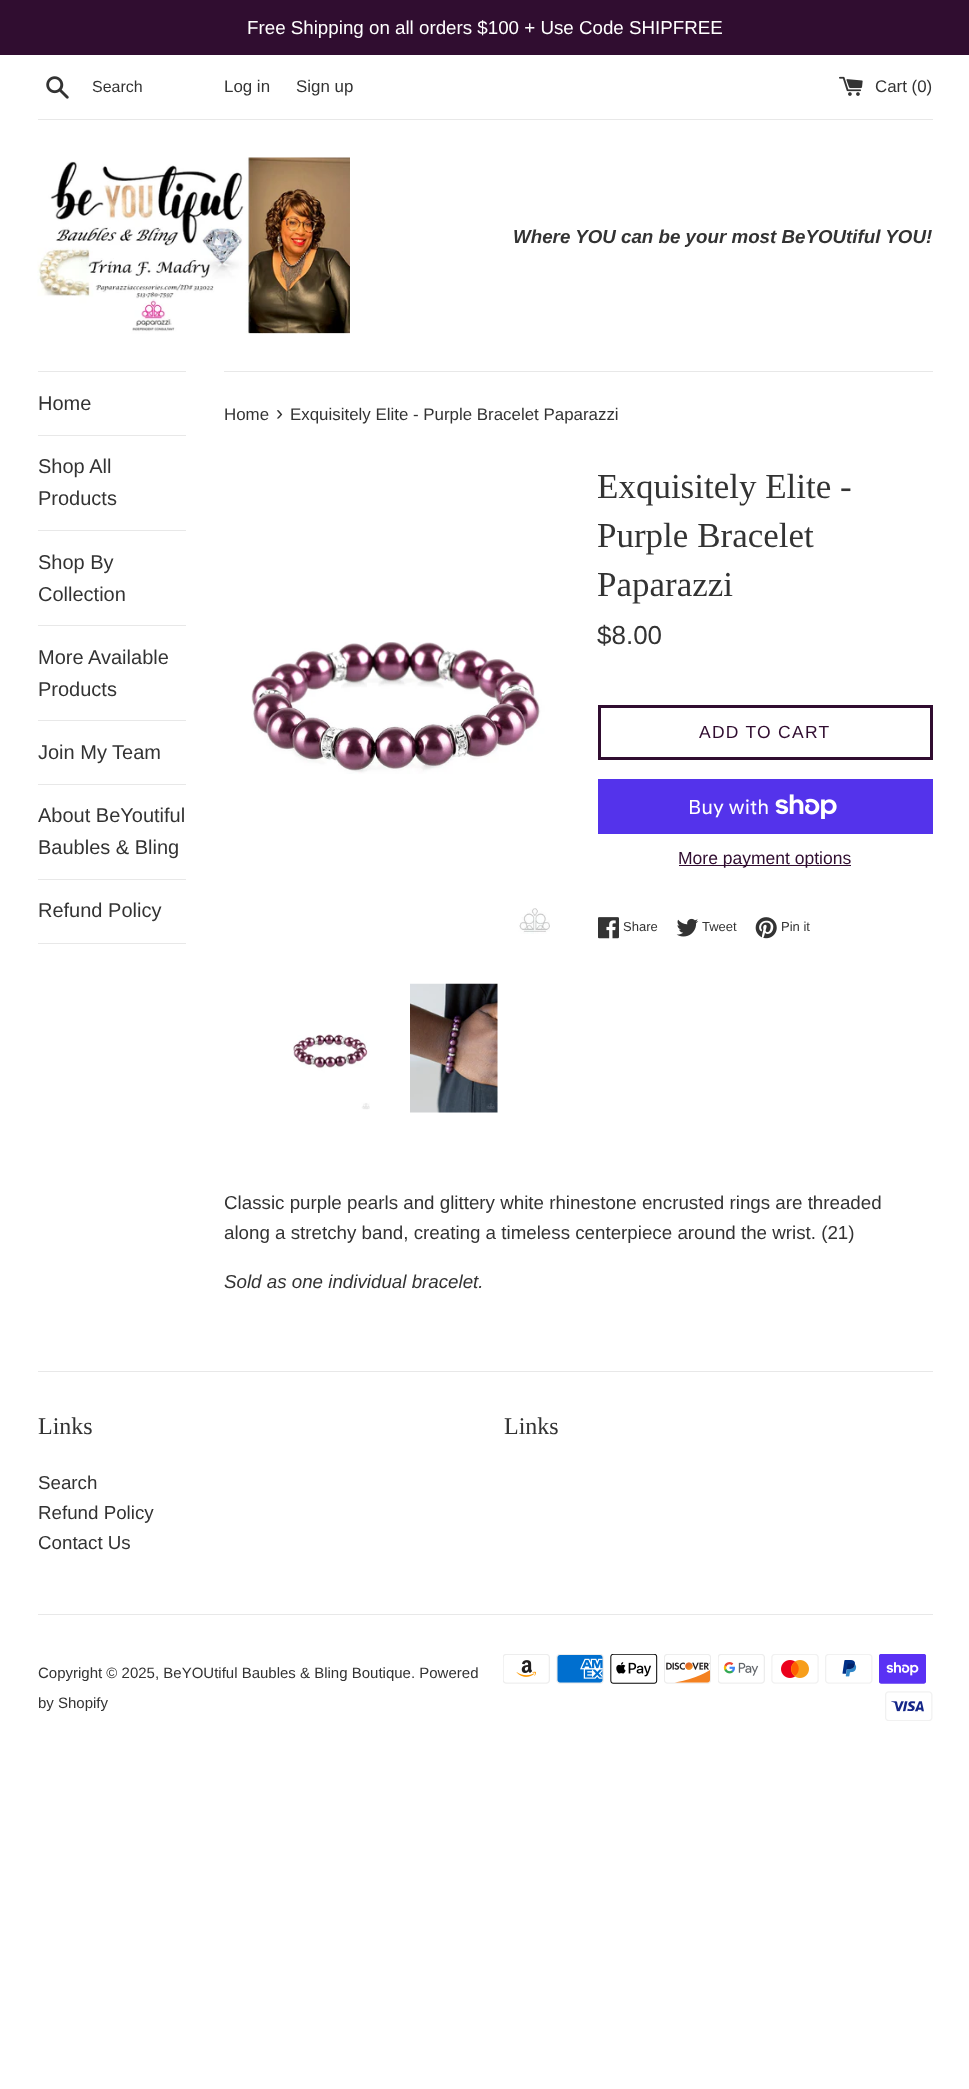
<!DOCTYPE html>
<meta charset="utf-8">
<style>body { margin: 0 } canvas { display: block }</style>
<canvas id="canvas" width="969" height="2089"></canvas>
<script type="module">
  const canvas = document.getElementById("canvas");
  const g = canvas.getContext("2d");
  g.miterLimit = 4;
  g.fontKerning = "normal";
  function drawText(s, x, y, [font, color]) {
    g.font = font;
    g.fillStyle = color;
    g.fillText(s, x, y);
  }
  function fillBox(x, y, w, h, color) {
    g.fillStyle = color;
    g.fillRect(x, y, w, h);
  }
  async function drawPicture(src, x, y, w, h) {
    const img = new Image();
    img.src = src;
    await img.decode();
    g.drawImage(img, x, y, w, h);
  }

  const s1 = ["18.75px Liberation Sans", "#FFFFFF"];
  const s2 = ["16px Liberation Sans", "#333333"];
  const s3 = ["16.9px Liberation Sans", "#333333"];
  const s4 = ["italic bold 18.75px Liberation Sans", "#333333"];
  const s5 = ["20px Liberation Sans", "#333333"];
  const s6 = ["21px Liberation Sans", "#333333"];
  const s7 = ["35px Liberation Serif", "#333333"];
  const s8 = ["26px Liberation Sans", "#333333"];
  const s9 = ["17.5px Liberation Sans", "#300D30"];
  const s10 = ["20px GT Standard", "#FFFFFF"];
  const s11 = ["13px Liberation Sans", "#333333"];
  const s12 = ["18.75px Liberation Sans", "#333333"];
  const s13 = ["italic 18.75px Liberation Sans", "#333333"];
  const s14 = ["24px Liberation Serif", "#333333"];
  const s15 = ["15px Liberation Sans", "#333333"];

  fillBox(0, 0, 969, 2089, "#FFFFFF");
  fillBox(0, 0, 969, 55, "#300D30");
  drawText("Free Shipping on all orders $100 + Use Code SHIPFREE", 247, 34, s1);
  await drawPicture("pic1.png", 46, 76, 23, 23);
  drawText("Search", 92, 92, s2);
  drawText("Log in", 224, 92, s3);
  drawText("Sign up", 296, 92, s3);
  await drawPicture("pic2.png", 839, 76, 24, 20);
  drawText("Cart (0)", 875, 92, s3);
  fillBox(38, 119, 895, 1, "#E8E8E8");
  await drawPicture("pic3.png", 37, 157, 313, 177);
  drawText("Where YOU can be your most BeYOUtiful YOU!", 513, 243, s4);
  fillBox(38, 371, 148, 1, "#E8E8E8");
  fillBox(38, 435, 148, 1, "#E8E8E8");
  drawText("Home", 38, 410, s5);
  fillBox(38, 530, 148, 1, "#E8E8E8");
  drawText("Shop All", 38, 473, s5);
  drawText("Products", 38, 505, s5);
  fillBox(38, 625, 148, 1, "#E8E8E8");
  drawText("Shop By", 38, 569, s5);
  drawText("Collection", 38, 601, s5);
  fillBox(38, 720, 148, 1, "#E8E8E8");
  drawText("More Available", 38, 664, s5);
  drawText("Products", 38, 696, s5);
  fillBox(38, 784, 148, 1, "#E8E8E8");
  drawText("Join My Team", 38, 759, s5);
  fillBox(38, 879, 148, 1, "#E8E8E8");
  drawText("About BeYoutiful", 38, 822, s5);
  drawText("Baubles & Bling", 38, 854, s5);
  fillBox(38, 943, 148, 1, "#E8E8E8");
  drawText("Refund Policy", 38, 917, s5);
  fillBox(224, 371, 709, 1, "#E8E8E8");
  drawText("Home", 224, 420, s3);
  drawText("›", 276, 420, s6);
  drawText("Exquisitely Elite - Purple Bracelet Paparazzi", 290, 420, s3);
  await drawPicture("pic4.png", 251, 642, 299, 292);
  await drawPicture("pic5.png", 293, 1034, 77, 76);
  await drawPicture("pic6.png", 410, 983, 88, 130);
  drawText("Exquisitely Elite -", 597, 498, s7);
  drawText("Purple Bracelet", 597, 547, s7);
  drawText("Paparazzi", 597, 596, s7);
  drawText("$8.00", 597, 644, s8);
  g.strokeStyle = "#300D30";
  g.lineWidth = 3;
  g.strokeRect(599.5, 706.5, 332, 52);
  g.letterSpacing = "1.25px";
  drawText("ADD TO CART", 699, 738, s9);
  fillBox(598, 779, 335, 55, "#5433EB");
  g.letterSpacing = "0px";
  drawText("Buy with", 688, 814, s10);
  await drawPicture("pic7.png", 775, 794, 62, 25);
  fillBox(679, 865, 172, 1, "#300D30");
  drawText("More payment options", 678, 864, s9);
  await drawPicture("pic8.png", 598, 917, 21, 22);
  drawText("Share", 623, 931, s11);
  await drawPicture("pic9.png", 676, 918, 23, 19);
  drawText("Tweet", 702, 931, s11);
  await drawPicture("pic10.png", 755, 917, 22, 22);
  drawText("Pin it", 781, 931, s11);
  drawText("Classic purple pearls and glittery white rhinestone encrusted rings are threaded", 224, 1209, s12);
  drawText("along a stretchy band, creating a timeless centerpiece around the wrist. (21)", 224, 1239, s12);
  drawText("Sold as one individual bracelet.", 224, 1288, s13);
  fillBox(38, 1371, 895, 1, "#E8E8E8");
  drawText("Links", 38, 1434, s14);
  drawText("Search", 38, 1489, s12);
  drawText("Refund Policy", 38, 1519, s12);
  drawText("Contact Us", 38, 1549, s12);
  drawText("Links", 504, 1434, s14);
  fillBox(38, 1614, 895, 1, "#E8E8E8");
  drawText("Copyright © 2025, BeYOUtiful Baubles & Bling Boutique. Powered", 38, 1678, s15);
  drawText("by Shopify", 38, 1708, s15);
  await drawPicture("pic11.png", 503, 1654, 47, 30);
  await drawPicture("pic12.png", 556, 1654, 48, 30);
  await drawPicture("pic13.png", 610, 1654, 48, 30);
  await drawPicture("pic14.png", 664, 1654, 47, 30);
  await drawPicture("pic15.png", 718, 1654, 47, 30);
  await drawPicture("pic16.png", 771, 1654, 48, 30);
  await drawPicture("pic17.png", 825, 1654, 48, 30);
  await drawPicture("pic18.png", 879, 1654, 47, 30);
  await drawPicture("pic19.png", 885, 1691, 48, 30);
</script>
